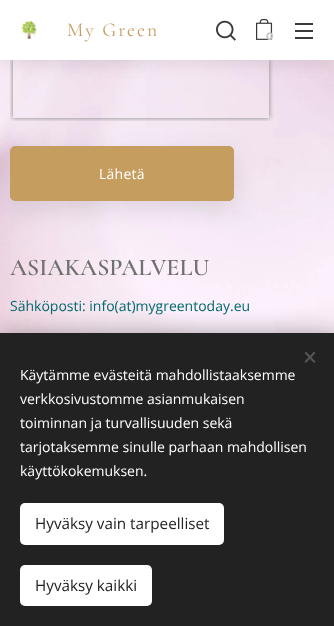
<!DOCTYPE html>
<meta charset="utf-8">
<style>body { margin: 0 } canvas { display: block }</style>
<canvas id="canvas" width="334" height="626"></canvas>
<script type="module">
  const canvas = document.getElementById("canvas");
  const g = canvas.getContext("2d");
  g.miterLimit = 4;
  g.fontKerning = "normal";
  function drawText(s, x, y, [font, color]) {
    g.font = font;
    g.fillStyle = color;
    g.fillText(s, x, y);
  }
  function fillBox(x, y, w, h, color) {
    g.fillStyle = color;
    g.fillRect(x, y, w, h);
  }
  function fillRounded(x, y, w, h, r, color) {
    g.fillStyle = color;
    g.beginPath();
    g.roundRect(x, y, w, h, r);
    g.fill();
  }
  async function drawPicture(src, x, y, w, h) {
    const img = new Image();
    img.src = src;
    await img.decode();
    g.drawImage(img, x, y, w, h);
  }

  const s1 = ["19.5px Cormorant", "#C59D5F"];
  const s2 = ["bold 11px Montserrat", "#C7C7C7"];
  const s3 = ["14px Open Sans", "#FFFFFF"];
  const s4 = ["600 24px Cormorant", "#707070"];
  const s5 = ["14px Open Sans", "#00696F"];
  const s6 = ["15.25px Open Sans", "#222222"];

  fillBox(0, 0, 334, 626, "#FFFFFF");
  await drawPicture("pic4.png", 0, 60, 334, 273);
  g.fillStyle = "rgba(0, 0, 0, 0.07)";
  g.filter = "blur(7.5px)";
  g.beginPath();
  g.rect(0, 5, 334, 60);
  g.fill();
  g.filter = "none";
  g.save();
  g.beginPath();
  g.rect(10, 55, 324, 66);
  g.clip();
  g.beginPath();
  g.moveTo(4, 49);
  g.lineTo(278, 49);
  g.lineTo(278, 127);
  g.lineTo(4, 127);
  g.closePath();
  g.moveTo(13, 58);
  g.lineTo(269, 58);
  g.lineTo(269, 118);
  g.lineTo(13, 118);
  g.closePath();
  g.clip("evenodd");
  g.fillStyle = "#808080";
  g.filter = "blur(2.5px)";
  g.beginPath();
  g.rect(13, 58, 256, 60);
  g.fill();
  g.filter = "none";
  g.restore();
  fillBox(0, 0, 334, 60, "#FFFFFF");
  await drawPicture("pic1.png", 21, 21, 16, 18);
  g.letterSpacing = "2px";
  drawText("My Green", 67, 36, s1);
  await drawPicture("pic2.png", 216, 20, 20, 21);
  await drawPicture("pic3.png", 256, 18, 17, 22);
  g.letterSpacing = "0px";
  drawText("0", 266, 40, s2);
  fillBox(295, 30, 18, 2, "#393939");
  fillBox(295, 23, 18, 2, "#393939");
  fillBox(295, 37, 18, 2, "#393939");
  g.fillStyle = "rgba(0, 0, 0, 0.1)";
  g.filter = "blur(12.5px)";
  g.beginPath();
  g.roundRect(10, 154, 224, 55, 5);
  g.fill();
  g.filter = "none";
  g.fillStyle = "#C59D5F";
  g.beginPath();
  g.roundRect(10.5, 146.5, 223, 54, 4.5);
  g.fill();
  g.strokeStyle = "#C59D5F";
  g.stroke();
  g.letterSpacing = "0.25px";
  drawText("Lähetä", 99, 179, s3);
  g.letterSpacing = "0px";
  drawText("ASIAKASPALVELU", 10, 275, s4);
  drawText("Sähköposti: info(at)mygreentoday.eu", 10, 311, s5);
  g.fillStyle = "rgba(0, 0, 0, 0.33)";
  g.filter = "blur(12.5px)";
  g.beginPath();
  g.rect(0, 333, 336, 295);
  g.fill();
  g.filter = "none";
  fillBox(0, 333, 334, 293, "#222222");
  g.fillStyle = "#555555";
  g.beginPath();
  g.moveTo(304.5, 361.5);
  g.lineTo(314, 351.5);
  g.lineTo(315.5, 353);
  g.lineTo(306, 363);
  g.closePath();
  g.fill();
  g.beginPath();
  g.moveTo(306, 351.5);
  g.lineTo(315.5, 361.5);
  g.lineTo(314, 363);
  g.lineTo(304.5, 353);
  g.closePath();
  g.fill();
  drawText("Käytämme evästeitä mahdollistaaksemme", 20, 380, s3);
  drawText("verkkosivustomme asianmukaisen", 20, 404, s3);
  drawText("toiminnan ja turvallisuuden sekä", 20, 428, s3);
  drawText("tarjotaksemme sinulle parhaan mahdollisen", 20, 452, s3);
  drawText("käyttökokemuksen.", 20, 476, s3);
  fillRounded(20, 503, 204, 42, 5, "#FFFFFF");
  drawText("Hyväksy vain tarpeelliset", 35, 529, s6);
  fillRounded(20, 565, 132, 41, 5, "#FFFFFF");
  drawText("Hyväksy kaikki", 35, 591, s6);
</script>
